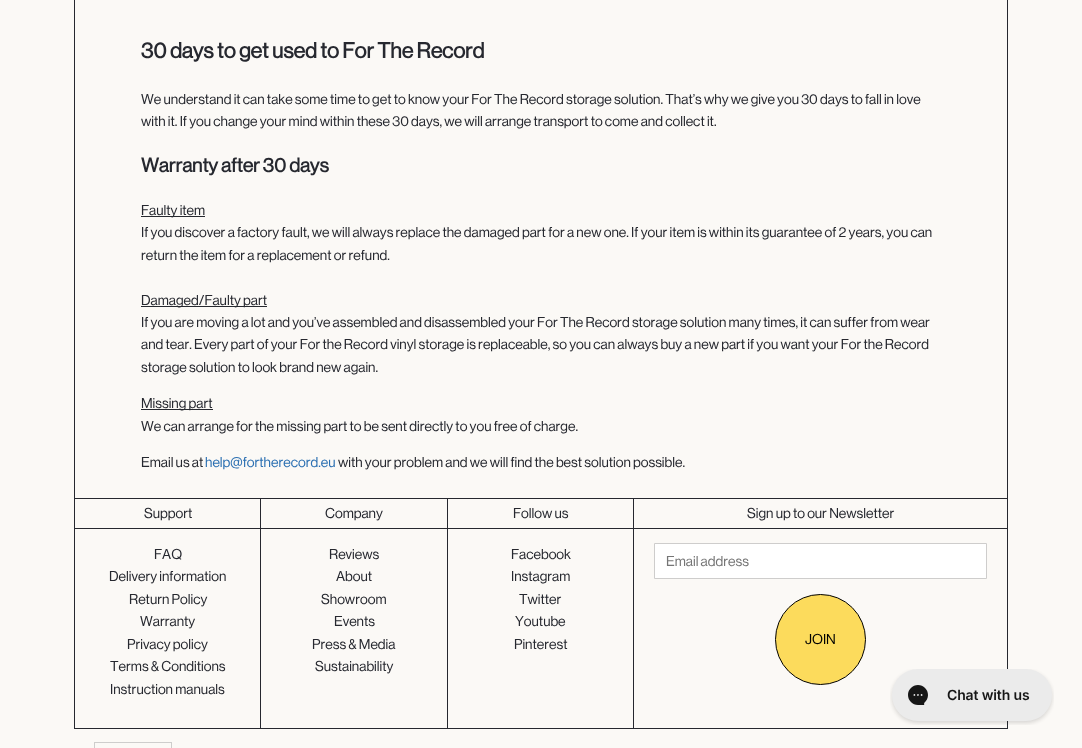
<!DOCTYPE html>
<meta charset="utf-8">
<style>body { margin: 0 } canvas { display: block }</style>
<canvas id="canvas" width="1082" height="748"></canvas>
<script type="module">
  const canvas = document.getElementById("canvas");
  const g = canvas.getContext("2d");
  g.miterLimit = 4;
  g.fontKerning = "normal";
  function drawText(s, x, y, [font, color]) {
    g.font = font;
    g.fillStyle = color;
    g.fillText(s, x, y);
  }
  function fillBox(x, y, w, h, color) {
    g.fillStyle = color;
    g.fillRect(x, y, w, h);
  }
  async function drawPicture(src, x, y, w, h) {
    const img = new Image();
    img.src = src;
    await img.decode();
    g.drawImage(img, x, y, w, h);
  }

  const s1 = ["bold 21.5px 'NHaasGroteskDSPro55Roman'", "#26282F"];
  const s2 = ["14px 'NHaasGroteskDSPro55Roman'", "#26282F"];
  const s3 = ["bold 19.5px 'NHaasGroteskDSPro55Roman'", "#26282F"];
  const s4 = ["14px 'NHaasGroteskDSPro55Roman'", "#2C70B2"];
  const s5 = ["14px 'NHaasGroteskDSPro55Roman'", "#757575"];
  const s6 = ["14px 'NHaasGroteskDSPro55Roman'", "#000000"];

  fillBox(0, 0, 1082, 748, "#FBF9F6");
  fillBox(1007, 0, 1, 498, "#26282F");
  fillBox(74, 0, 1, 498, "#26282F");
  drawText("30 days to get used to For The Record", 141, 58, s1);
  drawText("We understand it can take some time to get to know your For The Record storage solution. That’s why we give you 30 days to fall in love", 141, 104, s2);
  drawText("with it. If you change your mind within these 30 days, we will arrange transport to come and collect it.", 141, 126, s2);
  drawText("Warranty after 30 days", 141, 172, s3);
  fillBox(141, 216, 64, 1, "#26282F");
  drawText("Faulty item", 141, 215, s2);
  drawText("If you discover a factory fault, we will always replace the damaged part for a new one. If your item is within its guarantee of 2 years, you can", 141, 237, s2);
  drawText("return the item for a replacement or refund.", 141, 260, s2);
  fillBox(141, 306, 126, 1, "#26282F");
  drawText("Damaged/Faulty part", 141, 305, s2);
  drawText("If you are moving a lot and you’ve assembled and disassembled your For The Record storage solution many times, it can suffer from wear", 141, 327, s2);
  drawText("and tear. Every part of your For the Record vinyl storage is replaceable, so you can always buy a new part if you want your For the Record", 141, 349, s2);
  drawText("storage solution to look brand new again.", 141, 372, s2);
  fillBox(141, 409, 72, 1, "#26282F");
  drawText("Missing part", 141, 408, s2);
  drawText("We can arrange for the missing part to be sent directly to you free of charge.", 141, 431, s2);
  drawText("Email us at", 141, 467, s2);
  drawText("help@fortherecord.eu", 205, 467, s4);
  drawText("with your problem and we will find the best solution possible.", 338, 467, s2);
  g.strokeStyle = "#26282F";
  g.strokeRect(74.5, 498.5, 933, 230);
  fillBox(260, 499, 1, 229, "#26282F");
  fillBox(75, 528, 185, 1, "#26282F");
  drawText("Support", 144, 518, s2);
  drawText("FAQ", 154, 559, s2);
  drawText("Delivery information", 109, 581, s2);
  drawText("Return Policy", 129, 604, s2);
  drawText("Warranty", 140, 626, s2);
  drawText("Privacy policy", 127, 649, s2);
  drawText("Terms & Conditions", 110, 671, s2);
  drawText("Instruction manuals", 110, 694, s2);
  fillBox(447, 499, 1, 229, "#26282F");
  fillBox(261, 528, 186, 1, "#26282F");
  drawText("Company", 325, 518, s2);
  drawText("Reviews", 329, 559, s2);
  drawText("About", 336, 581, s2);
  drawText("Showroom", 321, 604, s2);
  drawText("Events", 334, 626, s2);
  drawText("Press & Media", 312, 649, s2);
  drawText("Sustainability", 315, 671, s2);
  fillBox(633, 499, 1, 229, "#26282F");
  fillBox(448, 528, 185, 1, "#26282F");
  drawText("Follow us", 513, 518, s2);
  drawText("Facebook", 511, 559, s2);
  drawText("Instagram", 511, 581, s2);
  drawText("Twitter", 519, 604, s2);
  drawText("Youtube", 515, 626, s2);
  drawText("Pinterest", 514, 649, s2);
  fillBox(634, 528, 373, 1, "#26282F");
  drawText("Sign up to our Newsletter", 747, 518, s2);
  g.fillStyle = "#FFFFFF";
  g.beginPath();
  g.rect(654.5, 543.5, 332, 35);
  g.fill();
  g.strokeStyle = "#CECDCC";
  g.stroke();
  drawText("Email address", 666, 566, s5);
  g.fillStyle = "#FCDB5C";
  g.beginPath();
  g.arc(820.5, 639.5, 45, 0, Math.PI * 2);
  g.fill();
  g.strokeStyle = "#000000";
  g.stroke();
  drawText("JOIN", 805, 644, s6);
  g.strokeStyle = "#CECDCC";
  g.strokeRect(94.5, 742.5, 77, 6);
  await drawPicture("pic1.png", 890, 669, 164, 56);
</script>
